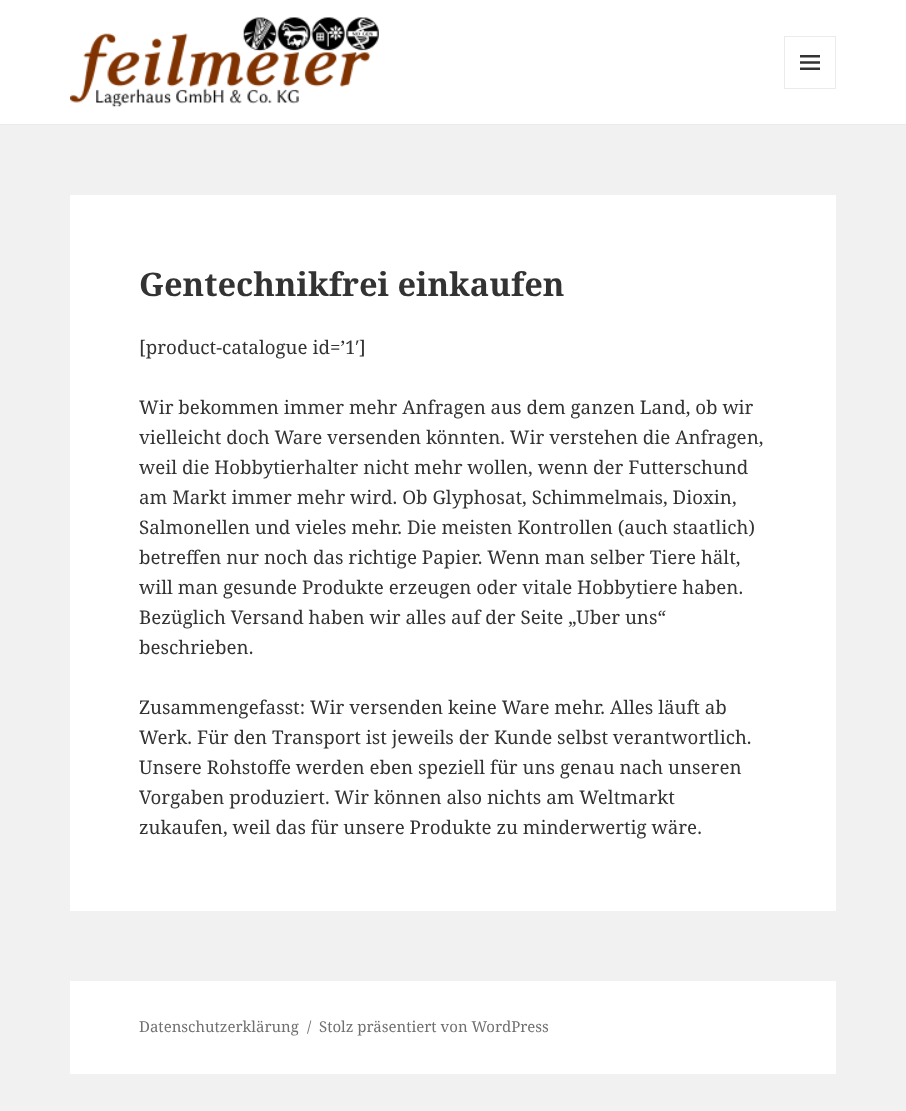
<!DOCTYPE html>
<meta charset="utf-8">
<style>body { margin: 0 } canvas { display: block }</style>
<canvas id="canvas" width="906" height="1111"></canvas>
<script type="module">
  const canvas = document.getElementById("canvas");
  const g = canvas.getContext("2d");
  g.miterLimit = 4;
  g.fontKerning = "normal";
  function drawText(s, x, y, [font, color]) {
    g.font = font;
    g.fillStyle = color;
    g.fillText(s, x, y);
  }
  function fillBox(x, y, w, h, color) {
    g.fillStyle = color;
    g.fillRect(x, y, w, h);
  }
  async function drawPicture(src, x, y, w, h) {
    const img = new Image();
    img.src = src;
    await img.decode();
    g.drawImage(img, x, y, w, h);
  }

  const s1 = ["bold 32.5px Noto Serif", "#333333"];
  const s2 = ["18.75px Noto Serif", "#333333"];
  const s3 = ["15px Noto Serif", "#707070"];

  fillBox(0, 0, 906, 1111, "#F1F1F1");
  fillBox(0, 0, 906, 124, "#FFFFFF");
  fillBox(0, 124, 906, 1, "#EBEBEB");
  await drawPicture("pic1.png", 70, 17, 309, 90);
  g.strokeStyle = "#EBEBEB";
  g.strokeRect(784.5, 36.5, 51, 52);
  await drawPicture("pic2.png", 800, 55, 20, 15);
  fillBox(70, 195, 766, 716, "#FFFFFF");
  drawText("Gentechnikfrei einkaufen", 139, 296, s1);
  drawText("[product-catalogue id=’1′]", 139, 354, s2);
  drawText("Wir bekommen immer mehr Anfragen aus dem ganzen Land, ob wir", 139, 414, s2);
  drawText("vielleicht doch Ware versenden könnten. Wir verstehen die Anfragen,", 139, 444, s2);
  drawText("weil die Hobbytierhalter nicht mehr wollen, wenn der Futterschund", 139, 474, s2);
  drawText("am Markt immer mehr wird. Ob Glyphosat, Schimmelmais, Dioxin,", 139, 504, s2);
  drawText("Salmonellen und vieles mehr. Die meisten Kontrollen (auch staatlich)", 139, 534, s2);
  drawText("betreffen nur noch das richtige Papier. Wenn man selber Tiere hält,", 139, 564, s2);
  drawText("will man gesunde Produkte erzeugen oder vitale Hobbytiere haben.", 139, 594, s2);
  drawText("Bezüglich Versand haben wir alles auf der Seite „Uber uns“", 139, 624, s2);
  drawText("beschrieben.", 139, 654, s2);
  drawText("Zusammengefasst: Wir versenden keine Ware mehr. Alles läuft ab", 139, 714, s2);
  drawText("Werk. Für den Transport ist jeweils der Kunde selbst verantwortlich.", 139, 744, s2);
  drawText("Unsere Rohstoffe werden eben speziell für uns genau nach unseren", 139, 774, s2);
  drawText("Vorgaben produziert. Wir können also nichts am Weltmarkt", 139, 804, s2);
  drawText("zukaufen, weil das für unsere Produkte zu minderwertig wäre.", 139, 834, s2);
  fillBox(70, 981, 766, 93, "#FFFFFF");
  drawText("Datenschutzerklärung", 139, 1032, s3);
  drawText("/", 307, 1032, s3);
  drawText("Stolz präsentiert von WordPress", 319, 1032, s3);
</script>
